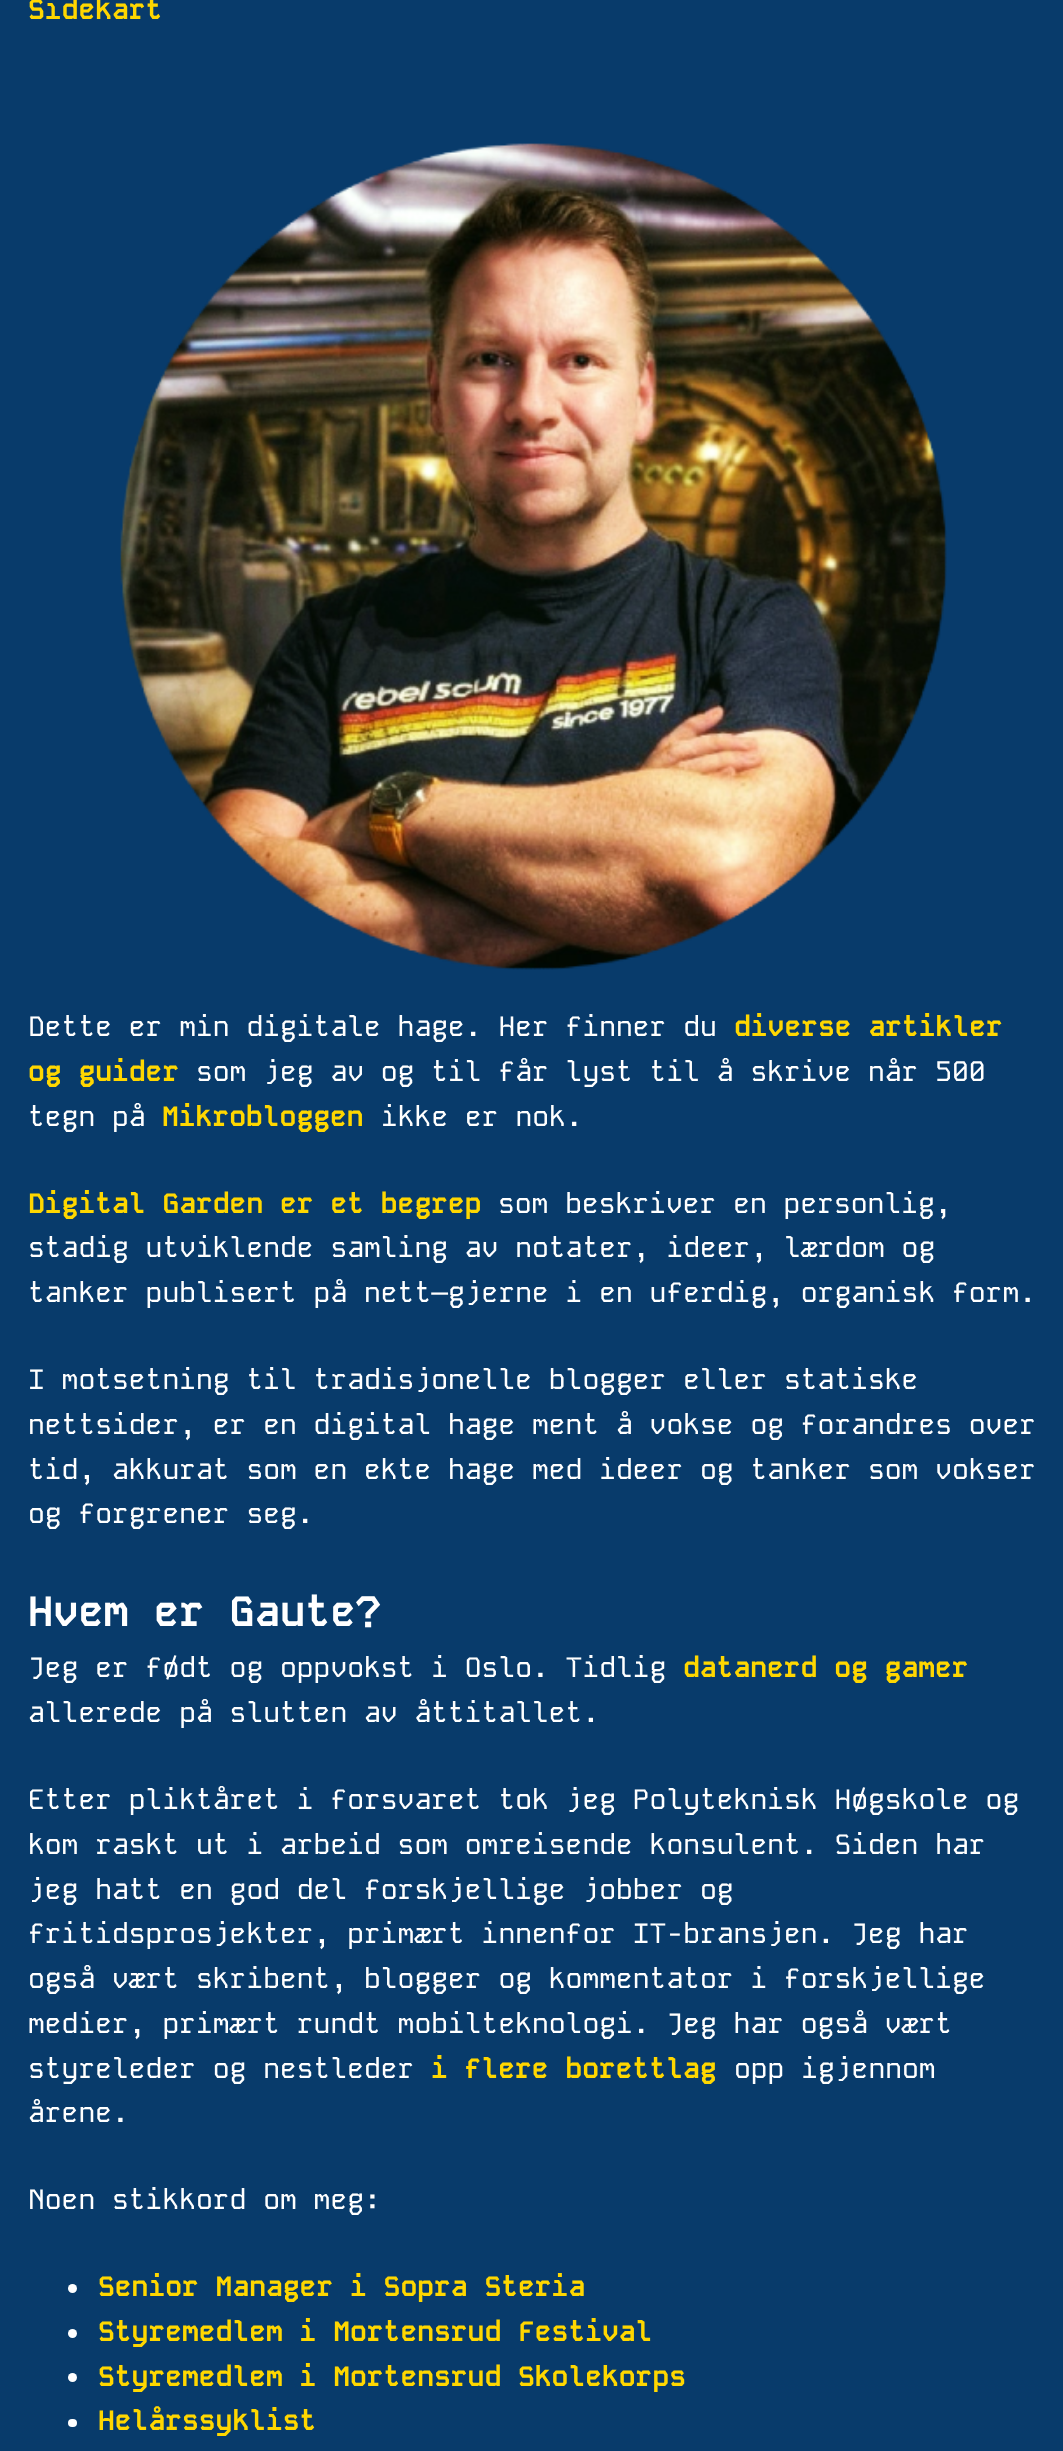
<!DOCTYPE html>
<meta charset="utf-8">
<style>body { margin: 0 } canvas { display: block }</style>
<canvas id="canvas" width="1063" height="2451"></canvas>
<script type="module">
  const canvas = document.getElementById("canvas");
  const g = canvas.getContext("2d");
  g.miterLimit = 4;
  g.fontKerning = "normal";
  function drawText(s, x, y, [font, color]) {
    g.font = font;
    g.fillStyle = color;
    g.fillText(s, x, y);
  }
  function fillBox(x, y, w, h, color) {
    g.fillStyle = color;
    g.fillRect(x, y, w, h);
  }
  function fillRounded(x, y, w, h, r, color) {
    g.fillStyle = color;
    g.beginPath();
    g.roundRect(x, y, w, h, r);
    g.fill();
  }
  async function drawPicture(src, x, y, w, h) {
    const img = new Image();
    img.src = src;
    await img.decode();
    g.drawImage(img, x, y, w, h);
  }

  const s1 = ["bold 28px Kode Mono", "#FFD700"];
  const s2 = ["28px Kode Mono", "#FFFFFF"];
  const s3 = ["bold 42px Kode Mono", "#FFFFFF"];

  fillBox(0, 0, 1063, 2451, "#083B6B");
  drawText("Sidekart", 28, 19, s1);
  await drawPicture("pic1.png", 120, 143, 827, 827);
  drawText("Dette er min digitale hage. Her finner du", 28, 1036, s2);
  drawText("diverse artikler", 734, 1036, s1);
  drawText("og guider", 28, 1081, s1);
  drawText("som jeg av og til får lyst til å skrive når 500", 196, 1081, s2);
  drawText("tegn på", 28, 1126, s2);
  drawText("Mikrobloggen", 162, 1126, s1);
  drawText("ikke er nok.", 381, 1126, s2);
  drawText("Digital Garden er et begrep", 28, 1213, s1);
  drawText("som beskriver en personlig,", 498, 1213, s2);
  drawText("stadig utviklende samling av notater, ideer, lærdom og", 28, 1257, s2);
  drawText("tanker publisert på nett—gjerne i en uferdig, organisk form.", 28, 1302, s2);
  drawText("I motsetning til tradisjonelle blogger eller statiske", 28, 1389, s2);
  drawText("nettsider, er en digital hage ment å vokse og forandres over", 28, 1434, s2);
  drawText("tid, akkurat som en ekte hage med ideer og tanker som vokser", 28, 1479, s2);
  drawText("og forgrener seg.", 28, 1523, s2);
  drawText("Hvem er Gaute?", 28, 1626, s3);
  drawText("Jeg er født og oppvokst i Oslo. Tidlig", 28, 1677, s2);
  drawText("datanerd og gamer", 683, 1677, s1);
  drawText("allerede på slutten av åttitallet.", 28, 1722, s2);
  drawText("Etter pliktåret i forsvaret tok jeg Polyteknisk Høgskole og", 28, 1809, s2);
  drawText("kom raskt ut i arbeid som omreisende konsulent. Siden har", 28, 1854, s2);
  drawText("jeg hatt en god del forskjellige jobber og", 28, 1899, s2);
  drawText("fritidsprosjekter, primært innenfor IT-bransjen. Jeg har", 28, 1943, s2);
  drawText("også vært skribent, blogger og kommentator i forskjellige", 28, 1988, s2);
  drawText("medier, primært rundt mobilteknologi. Jeg har også vært", 28, 2033, s2);
  drawText("styreleder og nestleder", 28, 2078, s2);
  drawText("i flere borettlag", 431, 2078, s1);
  drawText("opp igjennom", 734, 2078, s2);
  drawText("årene.", 28, 2122, s2);
  drawText("Noen stikkord om meg:", 28, 2209, s2);
  g.beginPath();
  g.arc(72.5, 2288.5, 4.5, 0, Math.PI * 2);
  g.fill();
  drawText("Senior Manager i Sopra Steria", 98, 2296, s1);
  g.fillStyle = "#FFFFFF";
  g.beginPath();
  g.arc(72.5, 2333.5, 4.5, 0, Math.PI * 2);
  g.fill();
  drawText("Styremedlem i Mortensrud Festival", 98, 2341, s1);
  g.fillStyle = "#FFFFFF";
  g.beginPath();
  g.arc(72.5, 2377.5, 4.5, 0, Math.PI * 2);
  g.fill();
  drawText("Styremedlem i Mortensrud Skolekorps", 98, 2386, s1);
  fillRounded(68, 2419, 9, 8, 4, "#FFFFFF");
  drawText("Helårssyklist", 98, 2430, s1);
</script>
